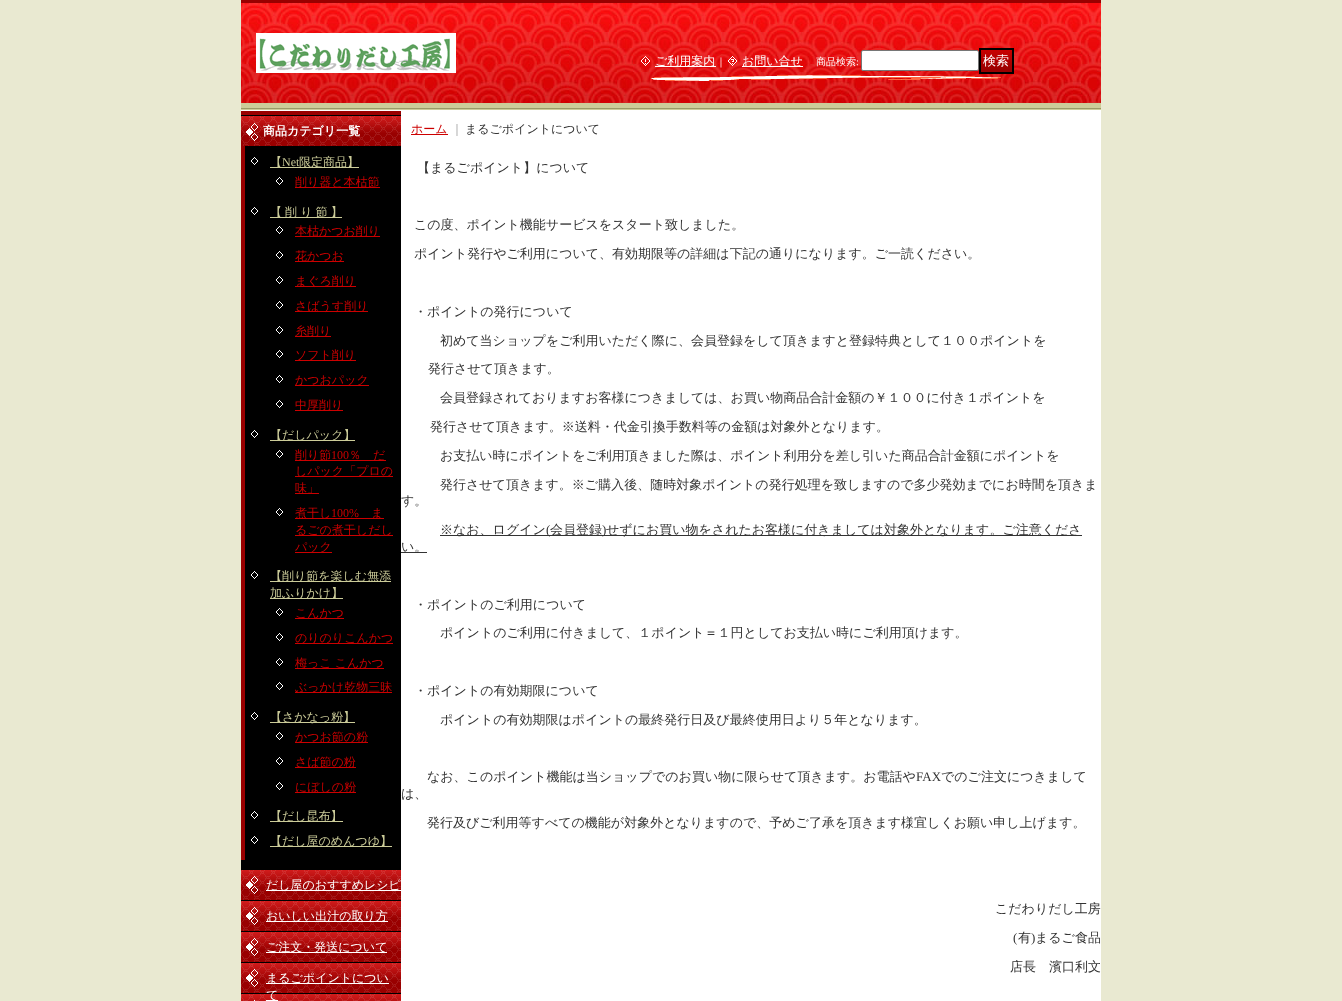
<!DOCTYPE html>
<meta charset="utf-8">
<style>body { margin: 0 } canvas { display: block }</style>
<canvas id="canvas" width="1342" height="1001"></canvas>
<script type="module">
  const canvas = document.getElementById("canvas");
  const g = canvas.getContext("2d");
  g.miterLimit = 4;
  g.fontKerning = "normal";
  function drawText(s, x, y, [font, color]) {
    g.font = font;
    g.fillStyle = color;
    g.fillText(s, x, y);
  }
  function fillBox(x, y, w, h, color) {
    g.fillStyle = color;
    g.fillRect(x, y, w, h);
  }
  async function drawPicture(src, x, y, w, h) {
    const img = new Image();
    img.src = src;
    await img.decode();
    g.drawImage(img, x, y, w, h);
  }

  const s1 = ["500 12px WenQuanYi Zen Hei", "#FFFFFF"];
  const s2 = ["500 10px WenQuanYi Zen Hei", "#FFFFFF"];
  const s3 = ["10px Liberation Serif", "#FFFFFF"];
  const s4 = ["500 13px WenQuanYi Zen Hei", "#FFFFFF"];
  const s5 = ["bold 12px WenQuanYi Zen Hei", "#FFFFFF"];
  const s6 = ["500 12px WenQuanYi Zen Hei", "#CCCC99"];
  const s7 = ["12px Liberation Serif", "#CCCC99"];
  const s8 = ["500 12px WenQuanYi Zen Hei", "#CC0000"];
  const s9 = ["12px Liberation Serif", "#CC0000"];
  const s10 = ["500 12px WenQuanYi Zen Hei", "#999999"];
  const s11 = ["500 12px WenQuanYi Zen Hei", "#333333"];
  const s12 = ["500 13px WenQuanYi Zen Hei", "#333333"];
  const s13 = ["13px Liberation Serif", "#333333"];

  fillBox(0, 0, 1342, 1001, "#E9E9D1");
  await drawPicture("pic1.png", 241, 3, 860, 100);
  fillBox(241, 0, 860, 3, "#990000");
  await drawPicture("pic2.png", 256, 33, 200, 40);
  await drawPicture("pic3.png", 651, 75, 350, 6);
  await drawPicture("pic4.png", 641, 56, 9, 10);
  fillBox(655, 66, 61, 1, "#FFFFFF");
  drawText("ご利用案内", 655, 65, s1);
  drawText("｜", 716, 65, s2);
  await drawPicture("pic5.png", 728, 56, 9, 10);
  fillBox(742, 66, 61, 1, "#FFFFFF");
  drawText("お問い合せ", 742, 65, s1);
  drawText("商品検索", 816, 65, s2);
  drawText(":", 856, 65, s3);
  g.beginPath();
  g.roundRect(861.5, 50.5, 117, 20, 1.5);
  g.fill();
  g.strokeStyle = "#767676";
  g.stroke();
  await drawPicture("pic6.png", 981, 50, 31, 22);
  g.strokeStyle = "#000000";
  g.lineWidth = 2;
  g.strokeRect(980, 49, 33, 24);
  drawText("検索", 983, 65, s4);
  await drawPicture("pic7.png", 241, 103, 860, 7);
  fillBox(241, 110, 860, 1, "#FFFFFF");
  fillBox(241, 146, 160, 848, "#000000");
  await drawPicture("pic8.png", 241, 111, 160, 35);
  drawText("商品カテゴリ一覧", 263, 135, s5);
  fillBox(241, 146, 4, 714, "#990000");
  await drawPicture("pic9.png", 251, 157, 7, 8);
  fillBox(270, 167, 89, 1, "#CCCC99");
  drawText("【", 270, 166, s6);
  drawText("Net", 282, 166, s7);
  drawText("限定商品】", 299, 166, s6);
  await drawPicture("pic9.png", 276, 177, 7, 8);
  fillBox(295, 187, 85, 1, "#CC0000");
  drawText("削り器と本枯節", 295, 186, s8);
  await drawPicture("pic9.png", 251, 207, 7, 8);
  fillBox(270, 217, 72, 1, "#CCCC99");
  g.wordSpacing = "-0.5px";
  drawText("【 削 り 節 】", 270, 216, s6);
  await drawPicture("pic9.png", 276, 226, 7, 8);
  fillBox(295, 236, 85, 1, "#CC0000");
  g.wordSpacing = "0px";
  drawText("本枯かつお削り", 295, 235, s8);
  await drawPicture("pic9.png", 276, 251, 7, 8);
  fillBox(295, 261, 49, 1, "#CC0000");
  drawText("花かつお", 295, 260, s8);
  await drawPicture("pic9.png", 276, 276, 7, 8);
  fillBox(295, 286, 61, 1, "#CC0000");
  drawText("まぐろ削り", 295, 285, s8);
  await drawPicture("pic9.png", 276, 301, 7, 8);
  fillBox(295, 311, 73, 1, "#CC0000");
  drawText("さばうす削り", 295, 310, s8);
  await drawPicture("pic9.png", 276, 326, 7, 8);
  fillBox(295, 336, 36, 1, "#CC0000");
  drawText("糸削り", 295, 335, s8);
  await drawPicture("pic9.png", 276, 350, 7, 8);
  fillBox(295, 360, 61, 1, "#CC0000");
  drawText("ソフト削り", 295, 359, s8);
  await drawPicture("pic9.png", 276, 375, 7, 8);
  fillBox(295, 385, 74, 1, "#CC0000");
  drawText("かつおパック", 295, 384, s8);
  await drawPicture("pic9.png", 276, 400, 7, 8);
  fillBox(295, 410, 48, 1, "#CC0000");
  drawText("中厚削り", 295, 409, s8);
  await drawPicture("pic9.png", 251, 430, 7, 8);
  fillBox(270, 440, 85, 1, "#CCCC99");
  drawText("【だしパック】", 270, 439, s6);
  await drawPicture("pic9.png", 276, 450, 7, 8);
  fillBox(295, 460, 91, 1, "#CC0000");
  drawText("削り節", 295, 459, s8);
  drawText("100", 331, 459, s9);
  drawText("％　だ", 349, 459, s8);
  fillBox(295, 476, 98, 1, "#CC0000");
  drawText("しパック「プロの", 295, 475, s8);
  fillBox(295, 493, 24, 1, "#CC0000");
  drawText("味」", 295, 492, s8);
  await drawPicture("pic9.png", 276, 508, 7, 8);
  fillBox(295, 518, 89, 1, "#CC0000");
  drawText("煮干し", 295, 517, s8);
  drawText("100%", 331, 517, s9);
  drawText("ま", 371, 517, s8);
  fillBox(295, 535, 98, 1, "#CC0000");
  drawText("るごの煮干しだし", 295, 534, s8);
  fillBox(295, 552, 37, 1, "#CC0000");
  drawText("パック", 295, 551, s8);
  await drawPicture("pic9.png", 251, 571, 7, 8);
  fillBox(270, 581, 121, 1, "#CCCC99");
  drawText("【削り節を楽しむ無添", 270, 580, s6);
  fillBox(270, 598, 73, 1, "#CCCC99");
  drawText("加ふりかけ】", 270, 597, s6);
  await drawPicture("pic9.png", 276, 608, 7, 8);
  fillBox(295, 618, 49, 1, "#CC0000");
  drawText("こんかつ", 295, 617, s8);
  await drawPicture("pic9.png", 276, 633, 7, 8);
  fillBox(295, 643, 98, 1, "#CC0000");
  drawText("のりのりこんかつ", 295, 642, s8);
  await drawPicture("pic9.png", 276, 658, 7, 8);
  fillBox(295, 668, 89, 1, "#CC0000");
  g.wordSpacing = "-0.5px";
  drawText("梅っこ こんかつ", 295, 667, s8);
  await drawPicture("pic9.png", 276, 682, 7, 8);
  fillBox(295, 692, 97, 1, "#CC0000");
  g.wordSpacing = "0px";
  drawText("ぶっかけ乾物三昧", 295, 691, s8);
  await drawPicture("pic9.png", 251, 712, 7, 8);
  fillBox(270, 722, 85, 1, "#CCCC99");
  drawText("【さかなっ粉】", 270, 721, s6);
  await drawPicture("pic9.png", 276, 732, 7, 8);
  fillBox(295, 742, 73, 1, "#CC0000");
  drawText("かつお節の粉", 295, 741, s8);
  await drawPicture("pic9.png", 276, 757, 7, 8);
  fillBox(295, 767, 61, 1, "#CC0000");
  drawText("さば節の粉", 295, 766, s8);
  await drawPicture("pic9.png", 276, 782, 7, 8);
  fillBox(295, 792, 61, 1, "#CC0000");
  drawText("にぼしの粉", 295, 791, s8);
  await drawPicture("pic9.png", 251, 811, 7, 8);
  fillBox(270, 821, 73, 1, "#CCCC99");
  drawText("【だし昆布】", 270, 820, s6);
  await drawPicture("pic9.png", 251, 836, 7, 8);
  fillBox(270, 846, 122, 1, "#CCCC99");
  drawText("【だし屋のめんつゆ】", 270, 845, s6);
  await drawPicture("pic10.png", 241, 870, 160, 30);
  fillBox(266, 890, 135, 1, "#FFFFFF");
  drawText("だし屋のおすすめレシピ", 266, 889, s1);
  await drawPicture("pic10.png", 241, 901, 160, 30);
  fillBox(266, 921, 122, 1, "#FFFFFF");
  drawText("おいしい出汁の取り方", 266, 920, s1);
  await drawPicture("pic10.png", 241, 932, 160, 30);
  fillBox(266, 952, 121, 1, "#FFFFFF");
  drawText("ご注文・発送について", 266, 951, s1);
  await drawPicture("pic10.png", 241, 963, 160, 30);
  fillBox(266, 983, 123, 1, "#FFFFFF");
  drawText("まるごポイントについ", 266, 982, s1);
  await drawPicture("pic11.png", 241, 994, 160, 7);
  fillBox(266, 1000, 12, 1, "#FFFFFF");
  drawText("て", 266, 999, s1);
  fillBox(401, 111, 700, 890, "#FFFFFF");
  fillBox(411, 134, 37, 1, "#CC0000");
  drawText("ホーム", 411, 133, s8);
  drawText("｜", 451, 133, s10);
  drawText("まるごポイントについて", 465, 133, s11);
  drawText("【まるごポイント】について", 417, 172, s12);
  drawText("この度、ポイント機能サービスをスタート致しました。", 414, 229, s12);
  drawText("ポイント発行やご利用について、有効期限等の詳細は下記の通りになります。ご一読ください。", 414, 258, s12);
  drawText("・ポイントの発行について", 414, 316, s12);
  drawText("初めて当ショップをご利用いただく際に、会員登録をして頂きますと登録特典として１００ポイントを", 440, 345, s12);
  drawText("発行させて頂きます。", 428, 373, s12);
  drawText("会員登録されておりますお客様につきましては、お買い物商品合計金額の￥１００に付き１ポイントを", 440, 402, s12);
  drawText("発行させて頂きます。※送料・代金引換手数料等の金額は対象外となります。", 430, 431, s12);
  drawText("お支払い時にポイントをご利用頂きました際は、ポイント利用分を差し引いた商品合計金額にポイントを", 440, 460, s12);
  drawText("発行させて頂きます。※ご購入後、随時対象ポイントの発行処理を致しますので多少発効までにお時間を頂きま", 440, 489, s12);
  drawText("す。", 401, 505, s12);
  fillBox(440, 535, 642, 1, "#333333");
  drawText("※なお、ログイン", 440, 534, s12);
  drawText("(", 546, 534, s13);
  drawText("会員登録", 550, 534, s12);
  drawText(")", 602, 534, s13);
  drawText("せずにお買い物をされたお客様に付きましては対象外となります。ご注意くださ", 606, 534, s12);
  fillBox(401, 552, 26, 1, "#333333");
  drawText("い。", 401, 551, s12);
  drawText("・ポイントのご利用について", 414, 609, s12);
  drawText("ポイントのご利用に付きまして、１ポイント＝１円としてお支払い時にご利用頂けます。", 440, 637, s12);
  drawText("・ポイントの有効期限について", 414, 695, s12);
  drawText("ポイントの有効期限はポイントの最終発行日及び最終使用日より５年となります。", 440, 724, s12);
  drawText("なお、このポイント機能は当ショップでのお買い物に限らせて頂きます。お電話や", 427, 781, s12);
  drawText("FAX", 916, 781, s13);
  drawText("でのご注文につきまして", 941, 781, s12);
  drawText("は、", 401, 798, s12);
  drawText("発行及びご利用等すべての機能が対象外となりますので、予めご了承を頂きます様宜しくお願い申し上げます。", 427, 827, s12);
  drawText("こだわりだし工房", 995, 913, s12);
  drawText("(", 1013, 942, s13);
  drawText("有", 1018, 942, s12);
  drawText(")", 1031, 942, s13);
  drawText("まるご食品", 1035, 942, s12);
  drawText("店長　濱口利文", 1010, 971, s12);
</script>
